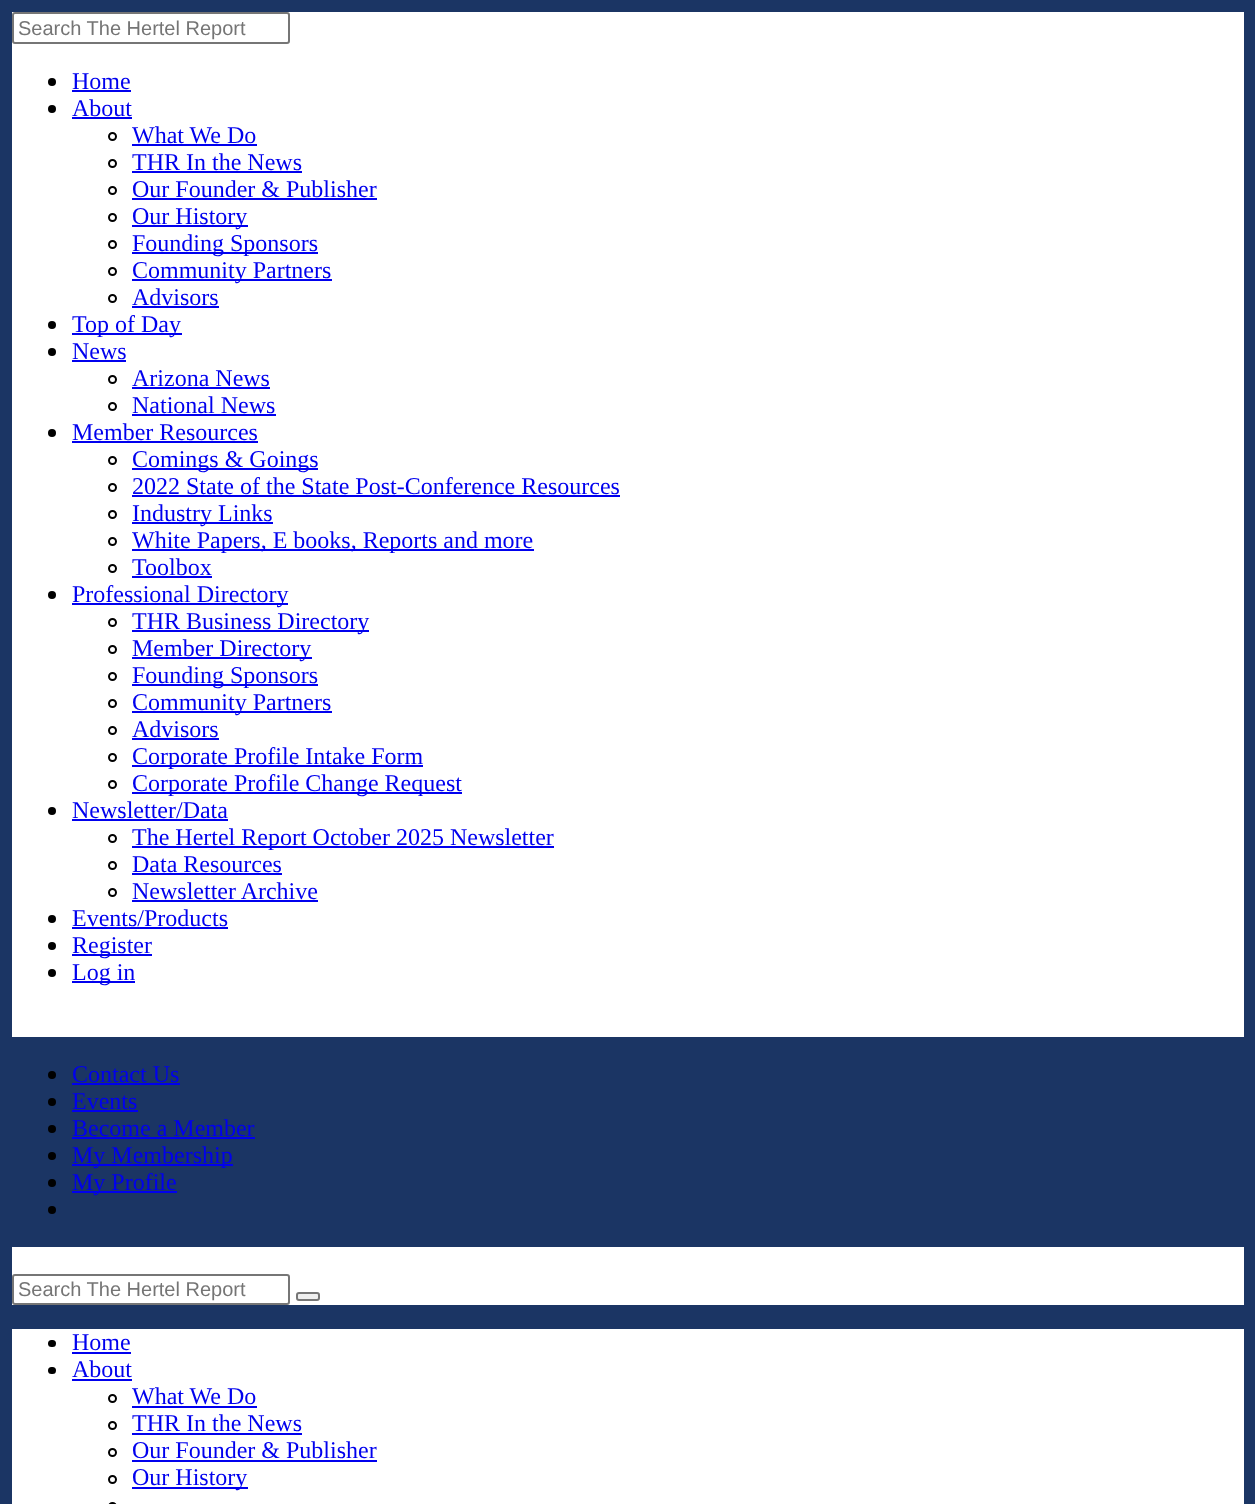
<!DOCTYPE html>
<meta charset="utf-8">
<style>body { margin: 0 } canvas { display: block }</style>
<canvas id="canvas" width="1255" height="1504"></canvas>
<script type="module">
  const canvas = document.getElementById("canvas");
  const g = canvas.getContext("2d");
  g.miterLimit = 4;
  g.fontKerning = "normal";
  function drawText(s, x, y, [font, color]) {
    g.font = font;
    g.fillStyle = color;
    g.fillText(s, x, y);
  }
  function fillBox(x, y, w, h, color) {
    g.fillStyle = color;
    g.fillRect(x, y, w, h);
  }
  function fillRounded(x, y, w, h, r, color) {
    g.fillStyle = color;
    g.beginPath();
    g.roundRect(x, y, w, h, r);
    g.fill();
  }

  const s1 = ["20px Liberation Sans", "#757575"];
  const s2 = ["24px Liberation Serif", "#0000EE"];

  fillBox(0, 0, 1255, 1504, "#1B3564");
  fillBox(12, 12, 1232, 1025, "#FFFFFF");
  g.beginPath();
  g.roundRect(13, 13, 276, 30, 2);
  g.strokeStyle = "#767676";
  g.lineWidth = 2;
  g.stroke();
  drawText("Search The Hertel Report", 18, 35, s1);
  g.fillStyle = "#000000";
  g.beginPath();
  g.arc(52, 82, 4, 0, Math.PI * 2);
  g.fill();
  drawText("Home", 72, 89, s2);
  fillBox(72, 90, 59, 2, "#0000EE");
  g.fillStyle = "#000000";
  g.beginPath();
  g.arc(52, 109, 4, 0, Math.PI * 2);
  g.fill();
  drawText("About", 72, 116, s2);
  fillBox(72, 117, 60, 2, "#0000EE");
  g.beginPath();
  g.arc(112.5, 136.5, 3.5, 0, Math.PI * 2);
  g.strokeStyle = "#000000";
  g.stroke();
  drawText("What We Do", 132, 143, s2);
  fillBox(132, 144, 125, 2, "#0000EE");
  g.beginPath();
  g.arc(112.5, 163.5, 3.5, 0, Math.PI * 2);
  g.stroke();
  drawText("THR In the News", 132, 170, s2);
  fillBox(132, 171, 170, 2, "#0000EE");
  g.beginPath();
  g.arc(112.5, 190.5, 3.5, 0, Math.PI * 2);
  g.stroke();
  drawText("Our Founder & Publisher", 132, 197, s2);
  fillBox(132, 198, 245, 2, "#0000EE");
  g.beginPath();
  g.arc(112.5, 217.5, 3.5, 0, Math.PI * 2);
  g.stroke();
  fillBox(132, 225, 116, 2, "#0000EE");
  drawText("Our History", 132, 224, s2);
  g.beginPath();
  g.arc(112.5, 244.5, 3.5, 0, Math.PI * 2);
  g.stroke();
  fillBox(132, 252, 186, 2, "#0000EE");
  drawText("Founding Sponsors", 132, 251, s2);
  g.beginPath();
  g.arc(112.5, 271.5, 3.5, 0, Math.PI * 2);
  g.stroke();
  fillBox(132, 279, 200, 2, "#0000EE");
  drawText("Community Partners", 132, 278, s2);
  g.beginPath();
  g.arc(112.5, 298.5, 3.5, 0, Math.PI * 2);
  g.stroke();
  drawText("Advisors", 132, 305, s2);
  fillBox(132, 306, 87, 2, "#0000EE");
  g.fillStyle = "#000000";
  g.beginPath();
  g.arc(52, 325, 4, 0, Math.PI * 2);
  g.fill();
  fillBox(72, 333, 110, 2, "#0000EE");
  drawText("Top of Day", 72, 332, s2);
  g.fillStyle = "#000000";
  g.beginPath();
  g.arc(52, 352, 4, 0, Math.PI * 2);
  g.fill();
  drawText("News", 72, 359, s2);
  fillBox(72, 360, 54, 2, "#0000EE");
  g.beginPath();
  g.arc(112.5, 379.5, 3.5, 0, Math.PI * 2);
  g.stroke();
  drawText("Arizona News", 132, 386, s2);
  fillBox(132, 387, 138, 2, "#0000EE");
  g.beginPath();
  g.arc(112.5, 406.5, 3.5, 0, Math.PI * 2);
  g.stroke();
  drawText("National News", 132, 413, s2);
  fillBox(132, 414, 144, 2, "#0000EE");
  g.fillStyle = "#000000";
  g.beginPath();
  g.arc(52, 433, 4, 0, Math.PI * 2);
  g.fill();
  drawText("Member Resources", 72, 440, s2);
  fillBox(72, 441, 186, 2, "#0000EE");
  g.beginPath();
  g.arc(112.5, 460.5, 3.5, 0, Math.PI * 2);
  g.stroke();
  fillBox(132, 468, 186, 2, "#0000EE");
  drawText("Comings & Goings", 132, 467, s2);
  g.beginPath();
  g.arc(112.5, 487.5, 3.5, 0, Math.PI * 2);
  g.stroke();
  drawText("2022 State of the State Post-Conference Resources", 132, 494, s2);
  fillBox(132, 495, 488, 2, "#0000EE");
  g.beginPath();
  g.arc(112.5, 514.5, 3.5, 0, Math.PI * 2);
  g.stroke();
  fillBox(132, 522, 141, 2, "#0000EE");
  drawText("Industry Links", 132, 521, s2);
  g.beginPath();
  g.arc(112.5, 541.5, 3.5, 0, Math.PI * 2);
  g.stroke();
  fillBox(132, 549, 402, 2, "#0000EE");
  drawText("White Papers, E books, Reports and more", 132, 548, s2);
  g.beginPath();
  g.arc(112.5, 568.5, 3.5, 0, Math.PI * 2);
  g.stroke();
  drawText("Toolbox", 132, 575, s2);
  fillBox(132, 576, 80, 2, "#0000EE");
  g.fillStyle = "#000000";
  g.beginPath();
  g.arc(52, 595, 4, 0, Math.PI * 2);
  g.fill();
  fillBox(72, 603, 216, 2, "#0000EE");
  drawText("Professional Directory", 72, 602, s2);
  g.beginPath();
  g.arc(112.5, 622.5, 3.5, 0, Math.PI * 2);
  g.stroke();
  fillBox(132, 630, 237, 2, "#0000EE");
  drawText("THR Business Directory", 132, 629, s2);
  g.beginPath();
  g.arc(112.5, 649.5, 3.5, 0, Math.PI * 2);
  g.stroke();
  fillBox(132, 657, 180, 2, "#0000EE");
  drawText("Member Directory", 132, 656, s2);
  g.beginPath();
  g.arc(112.5, 676.5, 3.5, 0, Math.PI * 2);
  g.stroke();
  fillBox(132, 684, 186, 2, "#0000EE");
  drawText("Founding Sponsors", 132, 683, s2);
  g.beginPath();
  g.arc(112.5, 703.5, 3.5, 0, Math.PI * 2);
  g.stroke();
  fillBox(132, 711, 200, 2, "#0000EE");
  drawText("Community Partners", 132, 710, s2);
  g.beginPath();
  g.arc(112.5, 730.5, 3.5, 0, Math.PI * 2);
  g.stroke();
  drawText("Advisors", 132, 737, s2);
  fillBox(132, 738, 87, 2, "#0000EE");
  g.beginPath();
  g.arc(112.5, 757.5, 3.5, 0, Math.PI * 2);
  g.stroke();
  fillBox(132, 765, 291, 2, "#0000EE");
  drawText("Corporate Profile Intake Form", 132, 764, s2);
  g.beginPath();
  g.arc(112.5, 784.5, 3.5, 0, Math.PI * 2);
  g.stroke();
  fillBox(132, 792, 330, 2, "#0000EE");
  drawText("Corporate Profile Change Request", 132, 791, s2);
  g.fillStyle = "#000000";
  g.beginPath();
  g.arc(52, 811, 4, 0, Math.PI * 2);
  g.fill();
  drawText("Newsletter/Data", 72, 818, s2);
  fillBox(72, 819, 156, 2, "#0000EE");
  g.beginPath();
  g.arc(112.5, 838.5, 3.5, 0, Math.PI * 2);
  g.stroke();
  fillBox(132, 846, 422, 2, "#0000EE");
  drawText("The Hertel Report October 2025 Newsletter", 132, 845, s2);
  g.beginPath();
  g.arc(112.5, 865.5, 3.5, 0, Math.PI * 2);
  g.stroke();
  drawText("Data Resources", 132, 872, s2);
  fillBox(132, 873, 150, 2, "#0000EE");
  g.beginPath();
  g.arc(112.5, 892.5, 3.5, 0, Math.PI * 2);
  g.stroke();
  drawText("Newsletter Archive", 132, 899, s2);
  fillBox(132, 900, 186, 2, "#0000EE");
  g.fillStyle = "#000000";
  g.beginPath();
  g.arc(52, 919, 4, 0, Math.PI * 2);
  g.fill();
  drawText("Events/Products", 72, 926, s2);
  fillBox(72, 927, 156, 2, "#0000EE");
  g.fillStyle = "#000000";
  g.beginPath();
  g.arc(52, 946, 4, 0, Math.PI * 2);
  g.fill();
  fillBox(72, 954, 80, 2, "#0000EE");
  drawText("Register", 72, 953, s2);
  g.fillStyle = "#000000";
  g.beginPath();
  g.arc(52, 973, 4, 0, Math.PI * 2);
  g.fill();
  fillBox(72, 981, 63, 2, "#0000EE");
  drawText("Log in", 72, 980, s2);
  g.fillStyle = "#000000";
  g.beginPath();
  g.arc(52, 1075, 4, 0, Math.PI * 2);
  g.fill();
  drawText("Contact Us", 72, 1082, s2);
  fillBox(72, 1083, 108, 2, "#0000EE");
  g.fillStyle = "#000000";
  g.beginPath();
  g.arc(52, 1102, 4, 0, Math.PI * 2);
  g.fill();
  drawText("Events", 72, 1109, s2);
  fillBox(72, 1110, 66, 2, "#0000EE");
  g.fillStyle = "#000000";
  g.beginPath();
  g.arc(52, 1129, 4, 0, Math.PI * 2);
  g.fill();
  drawText("Become a Member", 72, 1136, s2);
  fillBox(72, 1137, 183, 2, "#0000EE");
  g.fillStyle = "#000000";
  g.beginPath();
  g.arc(52, 1156, 4, 0, Math.PI * 2);
  g.fill();
  fillBox(72, 1164, 161, 2, "#0000EE");
  drawText("My Membership", 72, 1163, s2);
  g.fillStyle = "#000000";
  g.beginPath();
  g.arc(52, 1183, 4, 0, Math.PI * 2);
  g.fill();
  fillBox(72, 1191, 105, 2, "#0000EE");
  drawText("My Profile", 72, 1190, s2);
  g.fillStyle = "#000000";
  g.beginPath();
  g.arc(52, 1210, 4, 0, Math.PI * 2);
  g.fill();
  fillBox(12, 1247, 1232, 58, "#FFFFFF");
  g.beginPath();
  g.roundRect(13, 1275, 276, 29, 2);
  g.strokeStyle = "#767676";
  g.stroke();
  drawText("Search The Hertel Report", 18, 1296, s1);
  g.fillStyle = "#EFEFEF";
  g.beginPath();
  g.roundRect(297, 1293, 22, 7, 2);
  g.fill();
  g.stroke();
  fillBox(12, 1329, 1232, 175, "#FFFFFF");
  fillRounded(48, 1340, 8, 7, 3.5, "#000000");
  drawText("Home", 72, 1350, s2);
  fillBox(72, 1352, 59, 2, "#0000EE");
  fillRounded(48, 1367, 8, 7, 3.5, "#000000");
  drawText("About", 72, 1377, s2);
  fillBox(72, 1379, 60, 2, "#0000EE");
  g.beginPath();
  g.arc(112.5, 1398.5, 3.5, 0, Math.PI * 2);
  g.strokeStyle = "#000000";
  g.stroke();
  drawText("What We Do", 132, 1404, s2);
  fillBox(132, 1406, 125, 2, "#0000EE");
  g.beginPath();
  g.arc(112.5, 1425.5, 3.5, 0, Math.PI * 2);
  g.stroke();
  drawText("THR In the News", 132, 1431, s2);
  fillBox(132, 1433, 170, 2, "#0000EE");
  g.beginPath();
  g.arc(112.5, 1452.5, 3.5, 0, Math.PI * 2);
  g.stroke();
  drawText("Our Founder & Publisher", 132, 1458, s2);
  fillBox(132, 1460, 245, 2, "#0000EE");
  g.beginPath();
  g.arc(112.5, 1479.5, 3.5, 0, Math.PI * 2);
  g.stroke();
  fillBox(132, 1487, 116, 2, "#0000EE");
  drawText("Our History", 132, 1485, s2);
  g.beginPath();
  g.arc(112.5, 1506.5, 3.5, 0, Math.PI * 2);
  g.stroke();
</script>
